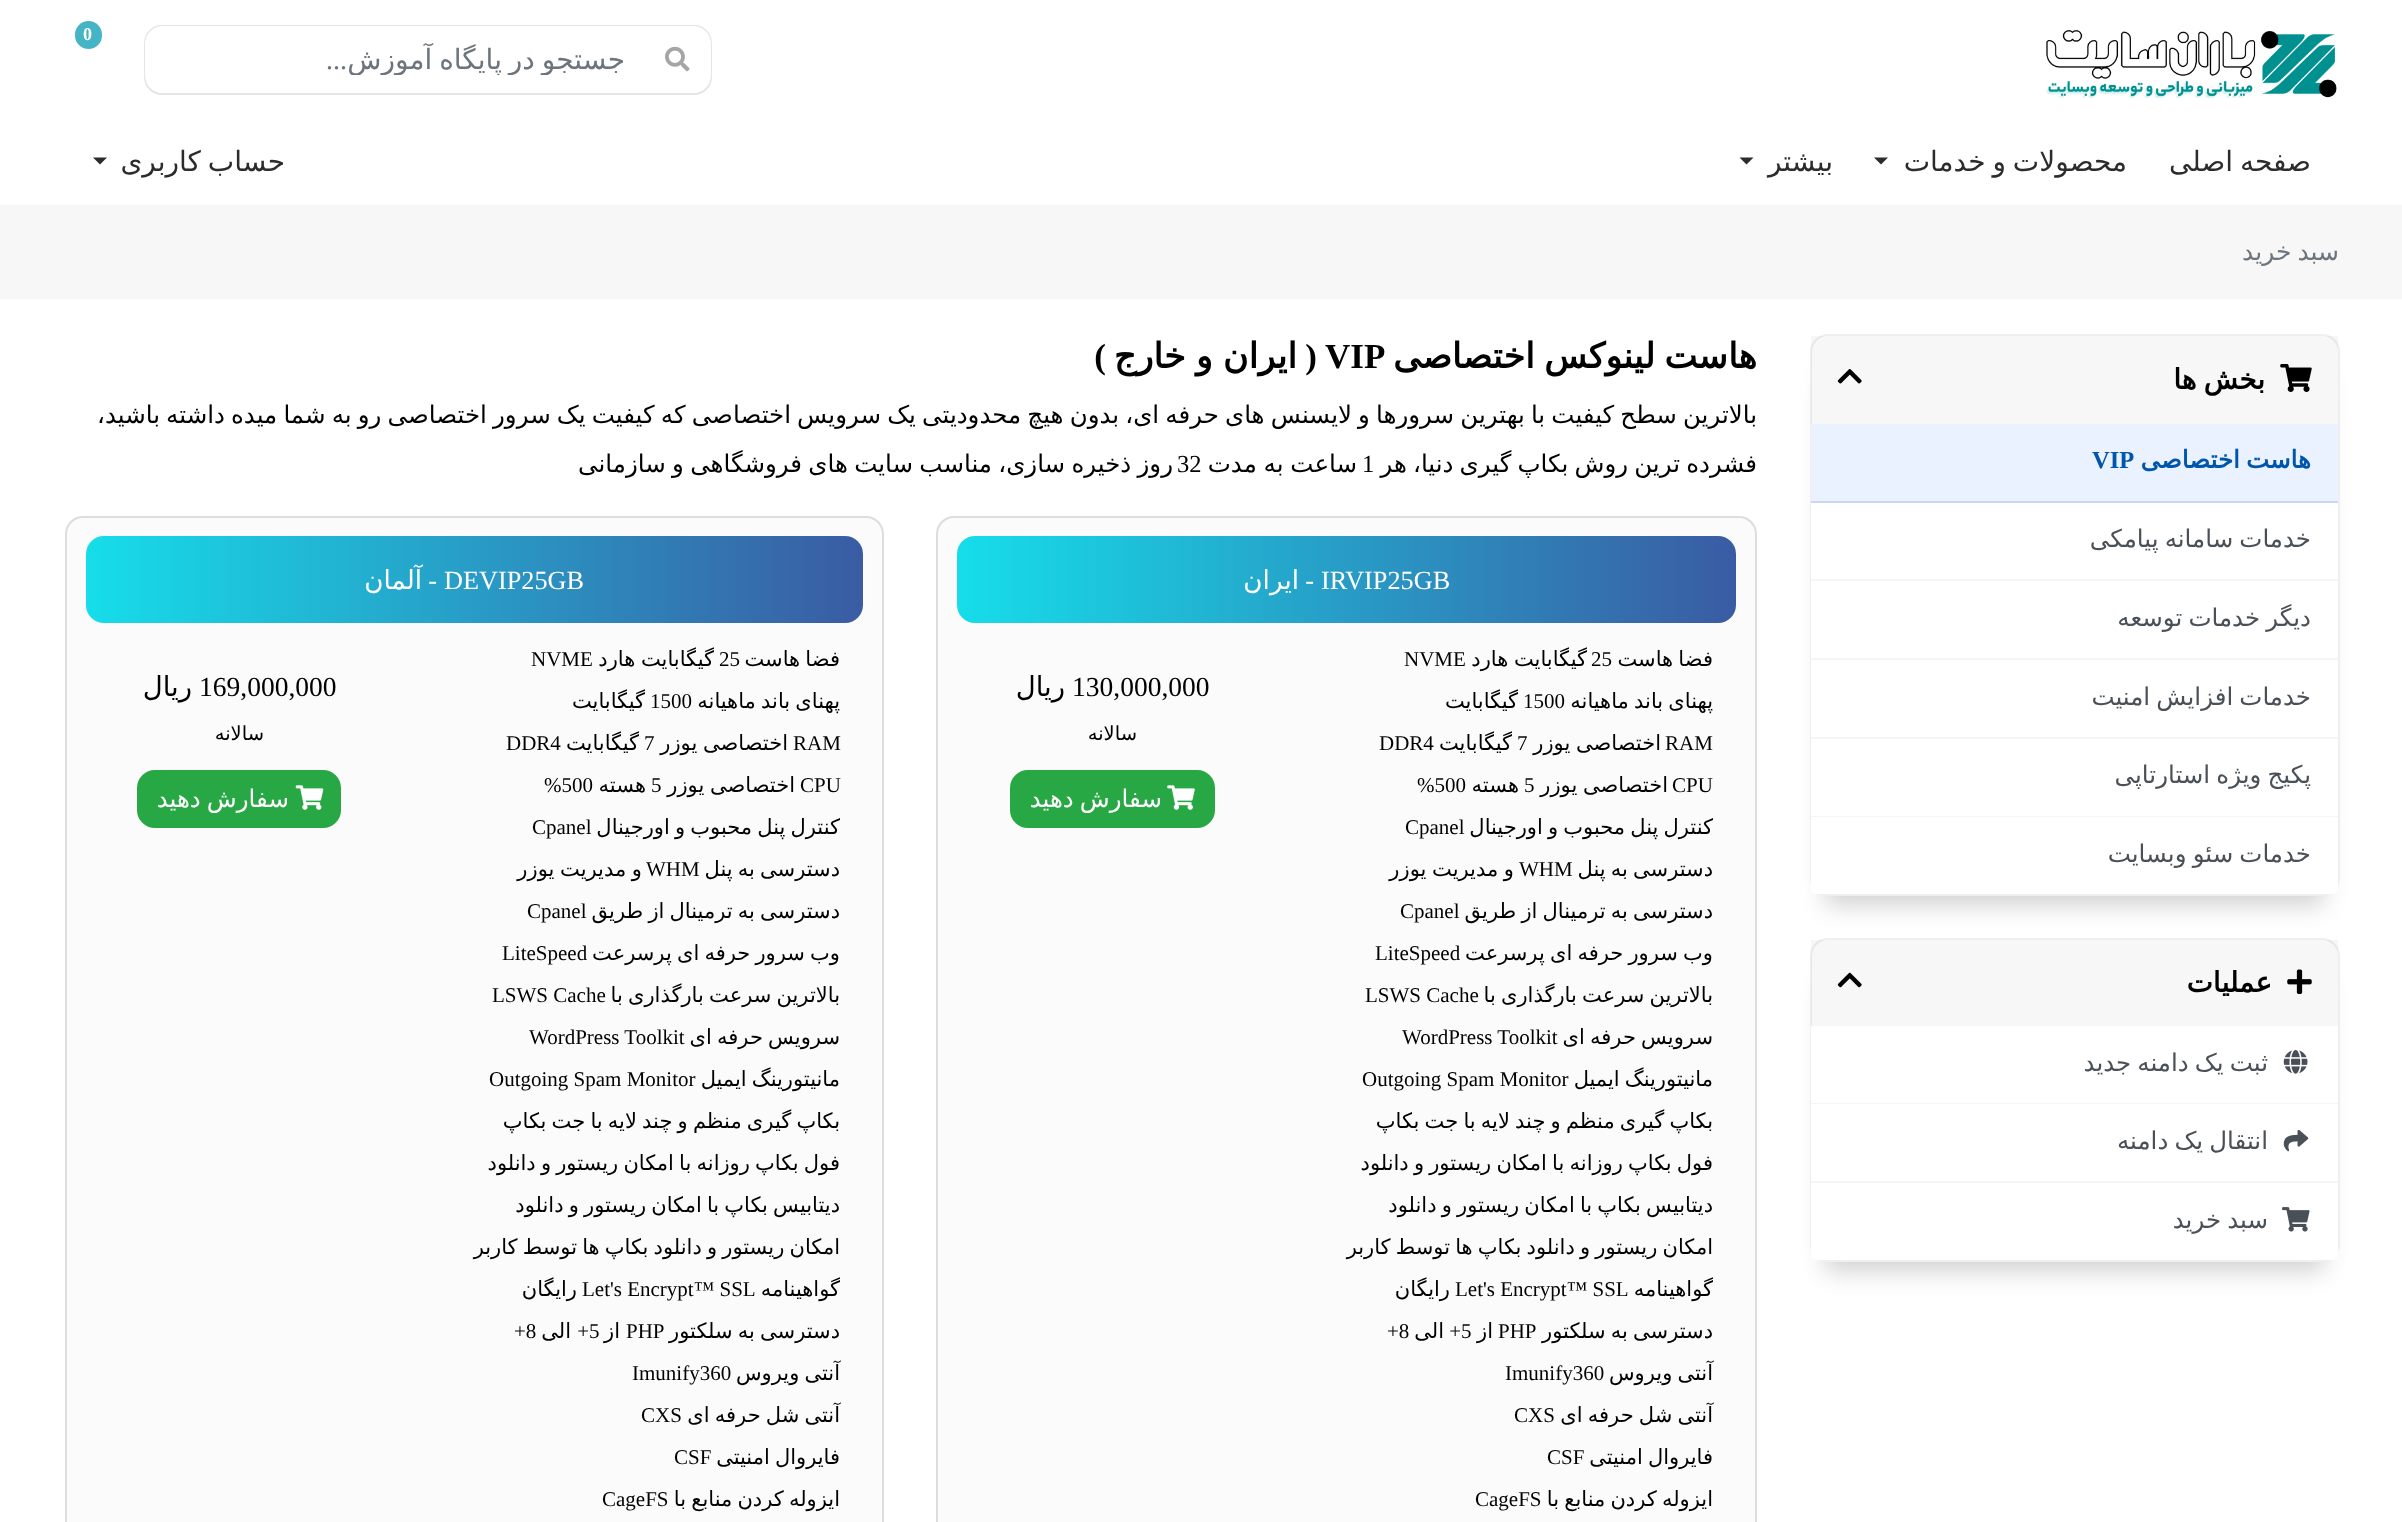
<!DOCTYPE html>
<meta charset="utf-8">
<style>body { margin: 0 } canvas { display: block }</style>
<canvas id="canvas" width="2402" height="1522"></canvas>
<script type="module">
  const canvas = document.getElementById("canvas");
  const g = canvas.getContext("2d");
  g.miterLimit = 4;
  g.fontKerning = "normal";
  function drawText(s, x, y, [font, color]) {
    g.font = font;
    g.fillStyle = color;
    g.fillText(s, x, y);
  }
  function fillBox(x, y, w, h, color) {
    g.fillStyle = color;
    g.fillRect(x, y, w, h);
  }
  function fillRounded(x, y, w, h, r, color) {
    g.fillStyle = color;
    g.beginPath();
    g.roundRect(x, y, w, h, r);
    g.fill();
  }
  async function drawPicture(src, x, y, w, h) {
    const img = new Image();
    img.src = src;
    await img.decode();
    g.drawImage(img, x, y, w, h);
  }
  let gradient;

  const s1 = ["28px DejaVu Sans", "#6C757D"];
  const s2 = ["28px Liberation Serif", "#6C757D"];
  const s3 = ["bold 18px Liberation Serif", "#FFFFFF"];
  const s4 = ["28px DejaVu Sans", "#2C2C2C"];
  const s5 = ["25px DejaVu Sans", "#6C757D"];
  const s6 = ["bold 28px DejaVu Sans", "#000000"];
  const s7 = ["bold 24.5px DejaVu Sans", "#0056AD"];
  const s8 = ["bold 24.5px Liberation Serif", "#0056AD"];
  const s9 = ["24.5px DejaVu Sans", "#495057"];
  const s10 = ["bold 35px DejaVu Sans", "#000000"];
  const s11 = ["bold 35px Liberation Serif", "#000000"];
  const s12 = ["24.5px DejaVu Sans", "#000000"];
  const s13 = ["24.5px Liberation Serif", "#000000"];
  const s14 = ["26.25px Liberation Serif", "#FFFFFF"];
  const s15 = ["26.25px DejaVu Sans", "#FFFFFF"];
  const s16 = ["21px DejaVu Sans", "#000000"];
  const s17 = ["21px Liberation Serif", "#000000"];
  const s18 = ["27.5px Liberation Serif", "#000000"];
  const s19 = ["27.5px DejaVu Sans", "#000000"];
  const s20 = ["19.5px DejaVu Sans", "#000000"];
  const s21 = ["24.5px DejaVu Sans", "#FFFFFF"];

  fillBox(0, 0, 2402, 1522, "#FFFFFF");
  await drawPicture("pic1.png", 2046, 30, 291, 68);
  g.beginPath();
  g.roundRect(145, 26, 566, 68, 17);
  g.strokeStyle = "#E5E5E5";
  g.lineWidth = 2;
  g.stroke();
  g.beginPath();
  g.roundRect(145, 26, 501, 67, [18, 0, 0, 18]);
  g.fill();
  g.beginPath();
  g.roundRect(644, 26, 67, 67, [0, 18, 18, 0]);
  g.fill();
  await drawPicture("pic2.png", 665, 46, 25, 26);
  g.save();
  g.beginPath();
  g.rect(166, 42, 459, 33);
  g.clip();
  g.wordSpacing = "-2px";
  g.direction = "rtl";
  drawText("جستجو در پایگاه آموزش", 625, 69, s1);
  g.restore();
  g.direction = "rtl";
  drawText("...", 347, 69, s2);
  fillRounded(75, 21, 27, 28, 13.5, "#45B5C6");
  g.direction = "ltr";
  drawText("0", 83, 40, s3);
  g.wordSpacing = "-2px";
  g.direction = "rtl";
  drawText("صفحه اصلی", 2311, 171, s4);
  drawText("محصولات و خدمات", 2127, 171, s4);
  g.beginPath();
  g.moveTo(1874, 157.5);
  g.lineTo(1888, 157.5);
  g.lineTo(1881, 164.5);
  g.closePath();
  g.fill();
  g.wordSpacing = "0px";
  drawText("بیشتر", 1833, 171, s4);
  g.beginPath();
  g.moveTo(1739.5, 157.5);
  g.lineTo(1753.5, 157.5);
  g.lineTo(1746.5, 164.5);
  g.closePath();
  g.fill();
  g.wordSpacing = "-2px";
  drawText("حساب کاربری", 285, 171, s4);
  g.beginPath();
  g.moveTo(93, 157.5);
  g.lineTo(107, 157.5);
  g.lineTo(100, 164.5);
  g.closePath();
  g.fill();
  fillBox(0, 205, 2402, 94, "#F7F7F7");
  drawText("سبد خرید", 2339, 260, s5);
  g.fillStyle = "rgba(169, 169, 169, 0.55)";
  g.filter = "blur(12px)";
  g.beginPath();
  g.roundRect(1825, 375, 499, 530, 2);
  g.fill();
  g.filter = "none";
  g.fillStyle = "#FFFFFF";
  g.beginPath();
  g.roundRect(1811, 335, 528, 560, 17);
  g.fill();
  g.strokeStyle = "#EFEFEF";
  g.stroke();
  fillBox(1811, 336, 527, 88, "rgba(0, 0, 0, 0.03)");
  await drawPicture("pic3.png", 2280, 364, 32, 28);
  drawText("بخش ها", 2265, 389, s6);
  await drawPicture("pic4.png", 1837, 369, 25, 15);
  fillBox(1811, 424, 527, 77, "#EAF1FF");
  fillBox(1811, 501, 527, 2, "#C9D7F3");
  g.wordSpacing = "-1.65px";
  drawText("هاست اختصاصی", 2311, 468, s7);
  g.wordSpacing = "0px";
  g.direction = "ltr";
  drawText("VIP", 2092, 468, s8);
  fillBox(1811, 503, 1, 76, "#FFFFFF");
  fillBox(1811, 579, 527, 2, "#F5F5F5");
  g.wordSpacing = "-1.65px";
  g.direction = "rtl";
  drawText("خدمات سامانه پیامکی", 2311, 547, s9);
  fillBox(1811, 581, 1, 77, "#FFFFFF");
  fillBox(1811, 658, 527, 2, "#F5F5F5");
  drawText("دیگر خدمات توسعه", 2311, 626, s9);
  fillBox(1811, 660, 1, 77, "#FFFFFF");
  fillBox(1811, 737, 527, 2, "#F5F5F5");
  drawText("خدمات افزایش امنیت", 2311, 705, s9);
  fillBox(1811, 739, 1, 77, "#FFFFFF");
  fillBox(1811, 816, 527, 1, "#F5F5F5");
  drawText("پکیج ویژه استارتاپی", 2311, 783, s9);
  g.fillStyle = "#FFFFFF";
  g.beginPath();
  g.roundRect(1811, 817, 527, 77, [0, 0, 5, 5]);
  g.fill();
  drawText("خدمات سئو وبسایت", 2311, 862, s9);
  g.fillStyle = "rgba(169, 169, 169, 0.55)";
  g.filter = "blur(12px)";
  g.beginPath();
  g.roundRect(1825, 978, 499, 293, 2);
  g.fill();
  g.filter = "none";
  g.fillStyle = "#FFFFFF";
  g.beginPath();
  g.roundRect(1811, 939, 528, 322, 17);
  g.fill();
  g.stroke();
  fillBox(1811, 940, 527, 86, "rgba(0, 0, 0, 0.03)");
  await drawPicture("pic5.png", 2287, 969, 25, 25);
  g.wordSpacing = "0px";
  drawText("عملیات", 2272, 992, s6);
  await drawPicture("pic6.png", 1837, 972, 25, 16);
  fillBox(1811, 1026, 1, 77, "#FFFFFF");
  fillBox(1811, 1103, 527, 1, "#F5F5F5");
  await drawPicture("pic7.png", 2283, 1050, 25, 24);
  g.wordSpacing = "-1.65px";
  drawText("ثبت یک دامنه جدید", 2268, 1071, s9);
  fillBox(1811, 1104, 1, 77, "#FFFFFF");
  fillBox(1811, 1181, 527, 2, "#F5F5F5");
  await drawPicture("pic8.png", 2283, 1129, 26, 23);
  drawText("انتقال یک دامنه", 2268, 1149, s9);
  g.fillStyle = "#FFFFFF";
  g.beginPath();
  g.roundRect(1811, 1183, 527, 77, [0, 0, 5, 5]);
  g.fill();
  await drawPicture("pic9.png", 2282, 1207, 28, 25);
  drawText("سبد خرید", 2268, 1228, s9);
  g.wordSpacing = "-2px";
  drawText("هاست لینوکس اختصاصی", 1757, 368, s10);
  g.wordSpacing = "0px";
  g.direction = "ltr";
  drawText("VIP", 1325, 368, s11);
  g.direction = "rtl";
  drawText("(", 1317, 368, s11);
  g.wordSpacing = "-1px";
  drawText("ایران و خارج", 1297, 368, s10);
  g.wordSpacing = "0px";
  drawText(")", 1106, 368, s11);
  g.wordSpacing = "-1.65px";
  drawText("بالاترین سطح کیفیت با بهترین سرورها و لایسنس های حرفه ای، بدون هیچ محدودیتی یک سرویس اختصاصی که کیفیت یک سرور اختصاصی رو به شما میده داشته باشید،", 1757, 423, s12);
  drawText("فشرده ترین روش بکاپ گیری دنیا، هر", 1757, 472, s12);
  g.wordSpacing = "0px";
  g.direction = "ltr";
  drawText("1", 1362, 472, s13);
  g.wordSpacing = "-1px";
  g.direction = "rtl";
  drawText("ساعت به مدت", 1357, 472, s12);
  g.wordSpacing = "-1.5px";
  drawText("روز ذخیره سازی، مناسب سایت های فروشگاهی و سازمانی", 1173, 472, s12);
  g.wordSpacing = "0px";
  g.direction = "ltr";
  drawText("32", 1177, 472, s13);
  g.fillStyle = "#FBFBFB";
  g.beginPath();
  g.roundRect(937, 517, 819, 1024, 17);
  g.fill();
  g.strokeStyle = "#DDDDDD";
  g.stroke();
  gradient = g.createLinearGradient(957, 579, 1736, 579);
  gradient.addColorStop(0, "#16DDE9");
  gradient.addColorStop(1, "#3A5BA3");
  g.fillStyle = gradient;
  g.beginPath();
  g.roundRect(957, 536, 779, 87, 18);
  g.fill();
  drawText("IRVIP25GB", 1321, 589, s14);
  g.direction = "rtl";
  drawText("-", 1314, 589, s14);
  drawText("ایران", 1299, 589, s15);
  g.wordSpacing = "-1.5px";
  drawText("فضا هاست", 1713, 666, s16);
  g.wordSpacing = "0px";
  g.direction = "ltr";
  drawText("25", 1591, 666, s17);
  g.wordSpacing = "-1px";
  g.direction = "rtl";
  drawText("گیگابایت هارد", 1587, 666, s16);
  g.wordSpacing = "0px";
  g.direction = "ltr";
  drawText("NVME", 1404, 666, s17);
  g.wordSpacing = "-1.5px";
  g.direction = "rtl";
  drawText("پهنای باند ماهیانه", 1713, 708, s16);
  g.wordSpacing = "0px";
  g.direction = "ltr";
  drawText("1500", 1523, 708, s17);
  g.direction = "rtl";
  drawText("گیگابایت", 1518, 708, s16);
  g.direction = "ltr";
  drawText("RAM", 1665, 750, s17);
  g.wordSpacing = "-1px";
  g.direction = "rtl";
  drawText("اختصاصی یوزر", 1661, 750, s16);
  g.wordSpacing = "0px";
  g.direction = "ltr";
  drawText("7", 1517, 750, s17);
  g.direction = "rtl";
  drawText("گیگابایت", 1512, 750, s16);
  g.direction = "ltr";
  drawText("DDR4", 1379, 750, s17);
  drawText("CPU", 1672, 792, s17);
  g.wordSpacing = "-1px";
  g.direction = "rtl";
  drawText("اختصاصی یوزر", 1668, 792, s16);
  g.wordSpacing = "0px";
  g.direction = "ltr";
  drawText("5", 1524, 792, s17);
  g.direction = "rtl";
  drawText("هسته", 1519, 792, s16);
  g.direction = "ltr";
  drawText("%500", 1417, 792, s17);
  g.wordSpacing = "-1.5px";
  g.direction = "rtl";
  drawText("کنترل پنل محبوب و اورجینال", 1713, 834, s16);
  g.wordSpacing = "0px";
  g.direction = "ltr";
  drawText("Cpanel", 1405, 834, s17);
  g.wordSpacing = "-1.5px";
  g.direction = "rtl";
  drawText("دسترسی به پنل", 1713, 876, s16);
  g.wordSpacing = "0px";
  g.direction = "ltr";
  drawText("WHM", 1519, 876, s17);
  g.wordSpacing = "-1px";
  g.direction = "rtl";
  drawText("و مدیریت یوزر", 1514, 876, s16);
  g.wordSpacing = "-1.5px";
  drawText("دسترسی به ترمینال از طریق", 1713, 918, s16);
  g.wordSpacing = "0px";
  g.direction = "ltr";
  drawText("Cpanel", 1400, 918, s17);
  g.wordSpacing = "-1.5px";
  g.direction = "rtl";
  drawText("وب سرور حرفه ای پرسرعت", 1713, 960, s16);
  g.wordSpacing = "0px";
  g.direction = "ltr";
  drawText("LiteSpeed", 1375, 960, s17);
  g.wordSpacing = "-1.5px";
  g.direction = "rtl";
  drawText("بالاترین سرعت بارگذاری با", 1713, 1002, s16);
  g.wordSpacing = "0px";
  g.direction = "ltr";
  drawText("LSWS Cache", 1365, 1002, s17);
  g.wordSpacing = "-1.5px";
  g.direction = "rtl";
  drawText("سرویس حرفه ای", 1713, 1044, s16);
  g.wordSpacing = "0px";
  g.direction = "ltr";
  drawText("WordPress Toolkit", 1402, 1044, s17);
  g.wordSpacing = "-1.5px";
  g.direction = "rtl";
  drawText("مانیتورینگ ایمیل", 1713, 1086, s16);
  g.wordSpacing = "0px";
  g.direction = "ltr";
  drawText("Outgoing Spam Monitor", 1362, 1086, s17);
  g.wordSpacing = "-1.5px";
  g.direction = "rtl";
  drawText("بکاپ گیری منظم و چند لایه با جت بکاپ", 1713, 1128, s16);
  drawText("فول بکاپ روزانه با امکان ریستور و دانلود", 1713, 1170, s16);
  drawText("دیتابیس بکاپ با امکان ریستور و دانلود", 1713, 1212, s16);
  drawText("امکان ریستور و دانلود بکاپ ها توسط کاربر", 1713, 1254, s16);
  g.wordSpacing = "0px";
  drawText("گواهینامه", 1713, 1296, s16);
  g.direction = "ltr";
  drawText("Let's Encrypt™ SSL", 1455, 1296, s17);
  g.direction = "rtl";
  drawText("رایگان", 1450, 1296, s16);
  g.wordSpacing = "-1.5px";
  drawText("دسترسی به سلکتور", 1713, 1338, s16);
  g.wordSpacing = "0px";
  g.direction = "ltr";
  drawText("PHP", 1498, 1338, s17);
  g.direction = "rtl";
  drawText("از", 1493, 1338, s16);
  g.direction = "ltr";
  drawText("5", 1461, 1338, s17);
  g.direction = "rtl";
  drawText("+", 1461, 1338, s17);
  drawText("الی", 1444, 1338, s16);
  g.direction = "ltr";
  drawText("+8", 1387, 1338, s17);
  g.wordSpacing = "-1.5px";
  g.direction = "rtl";
  drawText("آنتی ویروس", 1713, 1380, s16);
  g.wordSpacing = "0px";
  g.direction = "ltr";
  drawText("Imunify360", 1505, 1380, s17);
  g.wordSpacing = "-1.5px";
  g.direction = "rtl";
  drawText("آنتی شل حرفه ای", 1713, 1422, s16);
  g.wordSpacing = "0px";
  g.direction = "ltr";
  drawText("CXS", 1514, 1422, s17);
  g.wordSpacing = "-1.5px";
  g.direction = "rtl";
  drawText("فایروال امنیتی", 1713, 1464, s16);
  g.wordSpacing = "0px";
  g.direction = "ltr";
  drawText("CSF", 1547, 1464, s17);
  g.wordSpacing = "-1.5px";
  g.direction = "rtl";
  drawText("ایزوله کردن منابع با", 1713, 1506, s16);
  g.wordSpacing = "0px";
  g.direction = "ltr";
  drawText("CageFS", 1475, 1506, s17);
  drawText("130,000,000", 1072, 696, s18);
  g.direction = "rtl";
  drawText("ریال", 1065, 696, s19);
  drawText("سالانه", 1137, 740, s20);
  g.fillStyle = "#28A745";
  g.beginPath();
  g.roundRect(1011, 771, 203, 56, 17);
  g.fill();
  g.strokeStyle = "#28A745";
  g.stroke();
  await drawPicture("pic10.png", 1167, 785, 28, 25);
  g.wordSpacing = "-1.65px";
  drawText("سفارش دهید", 1162, 807, s21);
  g.fillStyle = "#FBFBFB";
  g.beginPath();
  g.roundRect(66, 517, 817, 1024, 17);
  g.fill();
  g.strokeStyle = "#DDDDDD";
  g.stroke();
  gradient = g.createLinearGradient(86, 579, 863, 579);
  gradient.addColorStop(0, "#16DDE9");
  gradient.addColorStop(1, "#3A5BA3");
  g.fillStyle = gradient;
  g.beginPath();
  g.roundRect(86, 536, 777, 87, 18);
  g.fill();
  g.wordSpacing = "0px";
  g.direction = "ltr";
  drawText("DEVIP25GB", 444, 589, s14);
  g.direction = "rtl";
  drawText("-", 437, 589, s14);
  drawText("آلمان", 422, 589, s15);
  g.wordSpacing = "-1.5px";
  drawText("فضا هاست", 840, 666, s16);
  g.wordSpacing = "0px";
  g.direction = "ltr";
  drawText("25", 719, 666, s17);
  g.wordSpacing = "-1px";
  g.direction = "rtl";
  drawText("گیگابایت هارد", 714, 666, s16);
  g.wordSpacing = "0px";
  g.direction = "ltr";
  drawText("NVME", 531, 666, s17);
  g.wordSpacing = "-1.5px";
  g.direction = "rtl";
  drawText("پهنای باند ماهیانه", 840, 708, s16);
  g.wordSpacing = "0px";
  g.direction = "ltr";
  drawText("1500", 650, 708, s17);
  g.direction = "rtl";
  drawText("گیگابایت", 645, 708, s16);
  g.direction = "ltr";
  drawText("RAM", 793, 750, s17);
  g.wordSpacing = "-1px";
  g.direction = "rtl";
  drawText("اختصاصی یوزر", 788, 750, s16);
  g.wordSpacing = "0px";
  g.direction = "ltr";
  drawText("7", 644, 750, s17);
  g.direction = "rtl";
  drawText("گیگابایت", 639, 750, s16);
  g.direction = "ltr";
  drawText("DDR4", 506, 750, s17);
  drawText("CPU", 800, 792, s17);
  g.wordSpacing = "-1px";
  g.direction = "rtl";
  drawText("اختصاصی یوزر", 795, 792, s16);
  g.wordSpacing = "0px";
  g.direction = "ltr";
  drawText("5", 651, 792, s17);
  g.direction = "rtl";
  drawText("هسته", 646, 792, s16);
  g.direction = "ltr";
  drawText("%500", 544, 792, s17);
  g.wordSpacing = "-1.5px";
  g.direction = "rtl";
  drawText("کنترل پنل محبوب و اورجینال", 840, 834, s16);
  g.wordSpacing = "0px";
  g.direction = "ltr";
  drawText("Cpanel", 532, 834, s17);
  g.wordSpacing = "-1.5px";
  g.direction = "rtl";
  drawText("دسترسی به پنل", 840, 876, s16);
  g.wordSpacing = "0px";
  g.direction = "ltr";
  drawText("WHM", 646, 876, s17);
  g.wordSpacing = "-1px";
  g.direction = "rtl";
  drawText("و مدیریت یوزر", 642, 876, s16);
  g.wordSpacing = "-1.5px";
  drawText("دسترسی به ترمینال از طریق", 840, 918, s16);
  g.wordSpacing = "0px";
  g.direction = "ltr";
  drawText("Cpanel", 527, 918, s17);
  g.wordSpacing = "-1.5px";
  g.direction = "rtl";
  drawText("وب سرور حرفه ای پرسرعت", 840, 960, s16);
  g.wordSpacing = "0px";
  g.direction = "ltr";
  drawText("LiteSpeed", 502, 960, s17);
  g.wordSpacing = "-1.5px";
  g.direction = "rtl";
  drawText("بالاترین سرعت بارگذاری با", 840, 1002, s16);
  g.wordSpacing = "0px";
  g.direction = "ltr";
  drawText("LSWS Cache", 492, 1002, s17);
  g.wordSpacing = "-1.5px";
  g.direction = "rtl";
  drawText("سرویس حرفه ای", 840, 1044, s16);
  g.wordSpacing = "0px";
  g.direction = "ltr";
  drawText("WordPress Toolkit", 529, 1044, s17);
  g.wordSpacing = "-1.5px";
  g.direction = "rtl";
  drawText("مانیتورینگ ایمیل", 840, 1086, s16);
  g.wordSpacing = "0px";
  g.direction = "ltr";
  drawText("Outgoing Spam Monitor", 489, 1086, s17);
  g.wordSpacing = "-1.5px";
  g.direction = "rtl";
  drawText("بکاپ گیری منظم و چند لایه با جت بکاپ", 840, 1128, s16);
  drawText("فول بکاپ روزانه با امکان ریستور و دانلود", 840, 1170, s16);
  drawText("دیتابیس بکاپ با امکان ریستور و دانلود", 840, 1212, s16);
  drawText("امکان ریستور و دانلود بکاپ ها توسط کاربر", 840, 1254, s16);
  g.wordSpacing = "0px";
  drawText("گواهینامه", 840, 1296, s16);
  g.direction = "ltr";
  drawText("Let's Encrypt™ SSL", 582, 1296, s17);
  g.direction = "rtl";
  drawText("رایگان", 577, 1296, s16);
  g.wordSpacing = "-1.5px";
  drawText("دسترسی به سلکتور", 840, 1338, s16);
  g.wordSpacing = "0px";
  g.direction = "ltr";
  drawText("PHP", 626, 1338, s17);
  g.direction = "rtl";
  drawText("از", 620, 1338, s16);
  g.direction = "ltr";
  drawText("5", 589, 1338, s17);
  g.direction = "rtl";
  drawText("+", 589, 1338, s17);
  drawText("الی", 571, 1338, s16);
  g.direction = "ltr";
  drawText("+8", 514, 1338, s17);
  g.wordSpacing = "-1.5px";
  g.direction = "rtl";
  drawText("آنتی ویروس", 840, 1380, s16);
  g.wordSpacing = "0px";
  g.direction = "ltr";
  drawText("Imunify360", 632, 1380, s17);
  g.wordSpacing = "-1.5px";
  g.direction = "rtl";
  drawText("آنتی شل حرفه ای", 840, 1422, s16);
  g.wordSpacing = "0px";
  g.direction = "ltr";
  drawText("CXS", 641, 1422, s17);
  g.wordSpacing = "-1.5px";
  g.direction = "rtl";
  drawText("فایروال امنیتی", 840, 1464, s16);
  g.wordSpacing = "0px";
  g.direction = "ltr";
  drawText("CSF", 674, 1464, s17);
  g.wordSpacing = "-1.5px";
  g.direction = "rtl";
  drawText("ایزوله کردن منابع با", 840, 1506, s16);
  g.wordSpacing = "0px";
  g.direction = "ltr";
  drawText("CageFS", 602, 1506, s17);
  drawText("169,000,000", 199, 696, s18);
  g.direction = "rtl";
  drawText("ریال", 192, 696, s19);
  drawText("سالانه", 264, 740, s20);
  g.fillStyle = "#28A745";
  g.beginPath();
  g.roundRect(138, 771, 202, 56, 17);
  g.fill();
  g.strokeStyle = "#28A745";
  g.stroke();
  await drawPicture("pic11.png", 295, 785, 29, 25);
  g.wordSpacing = "-1.65px";
  drawText("سفارش دهید", 289, 807, s21);
</script>
